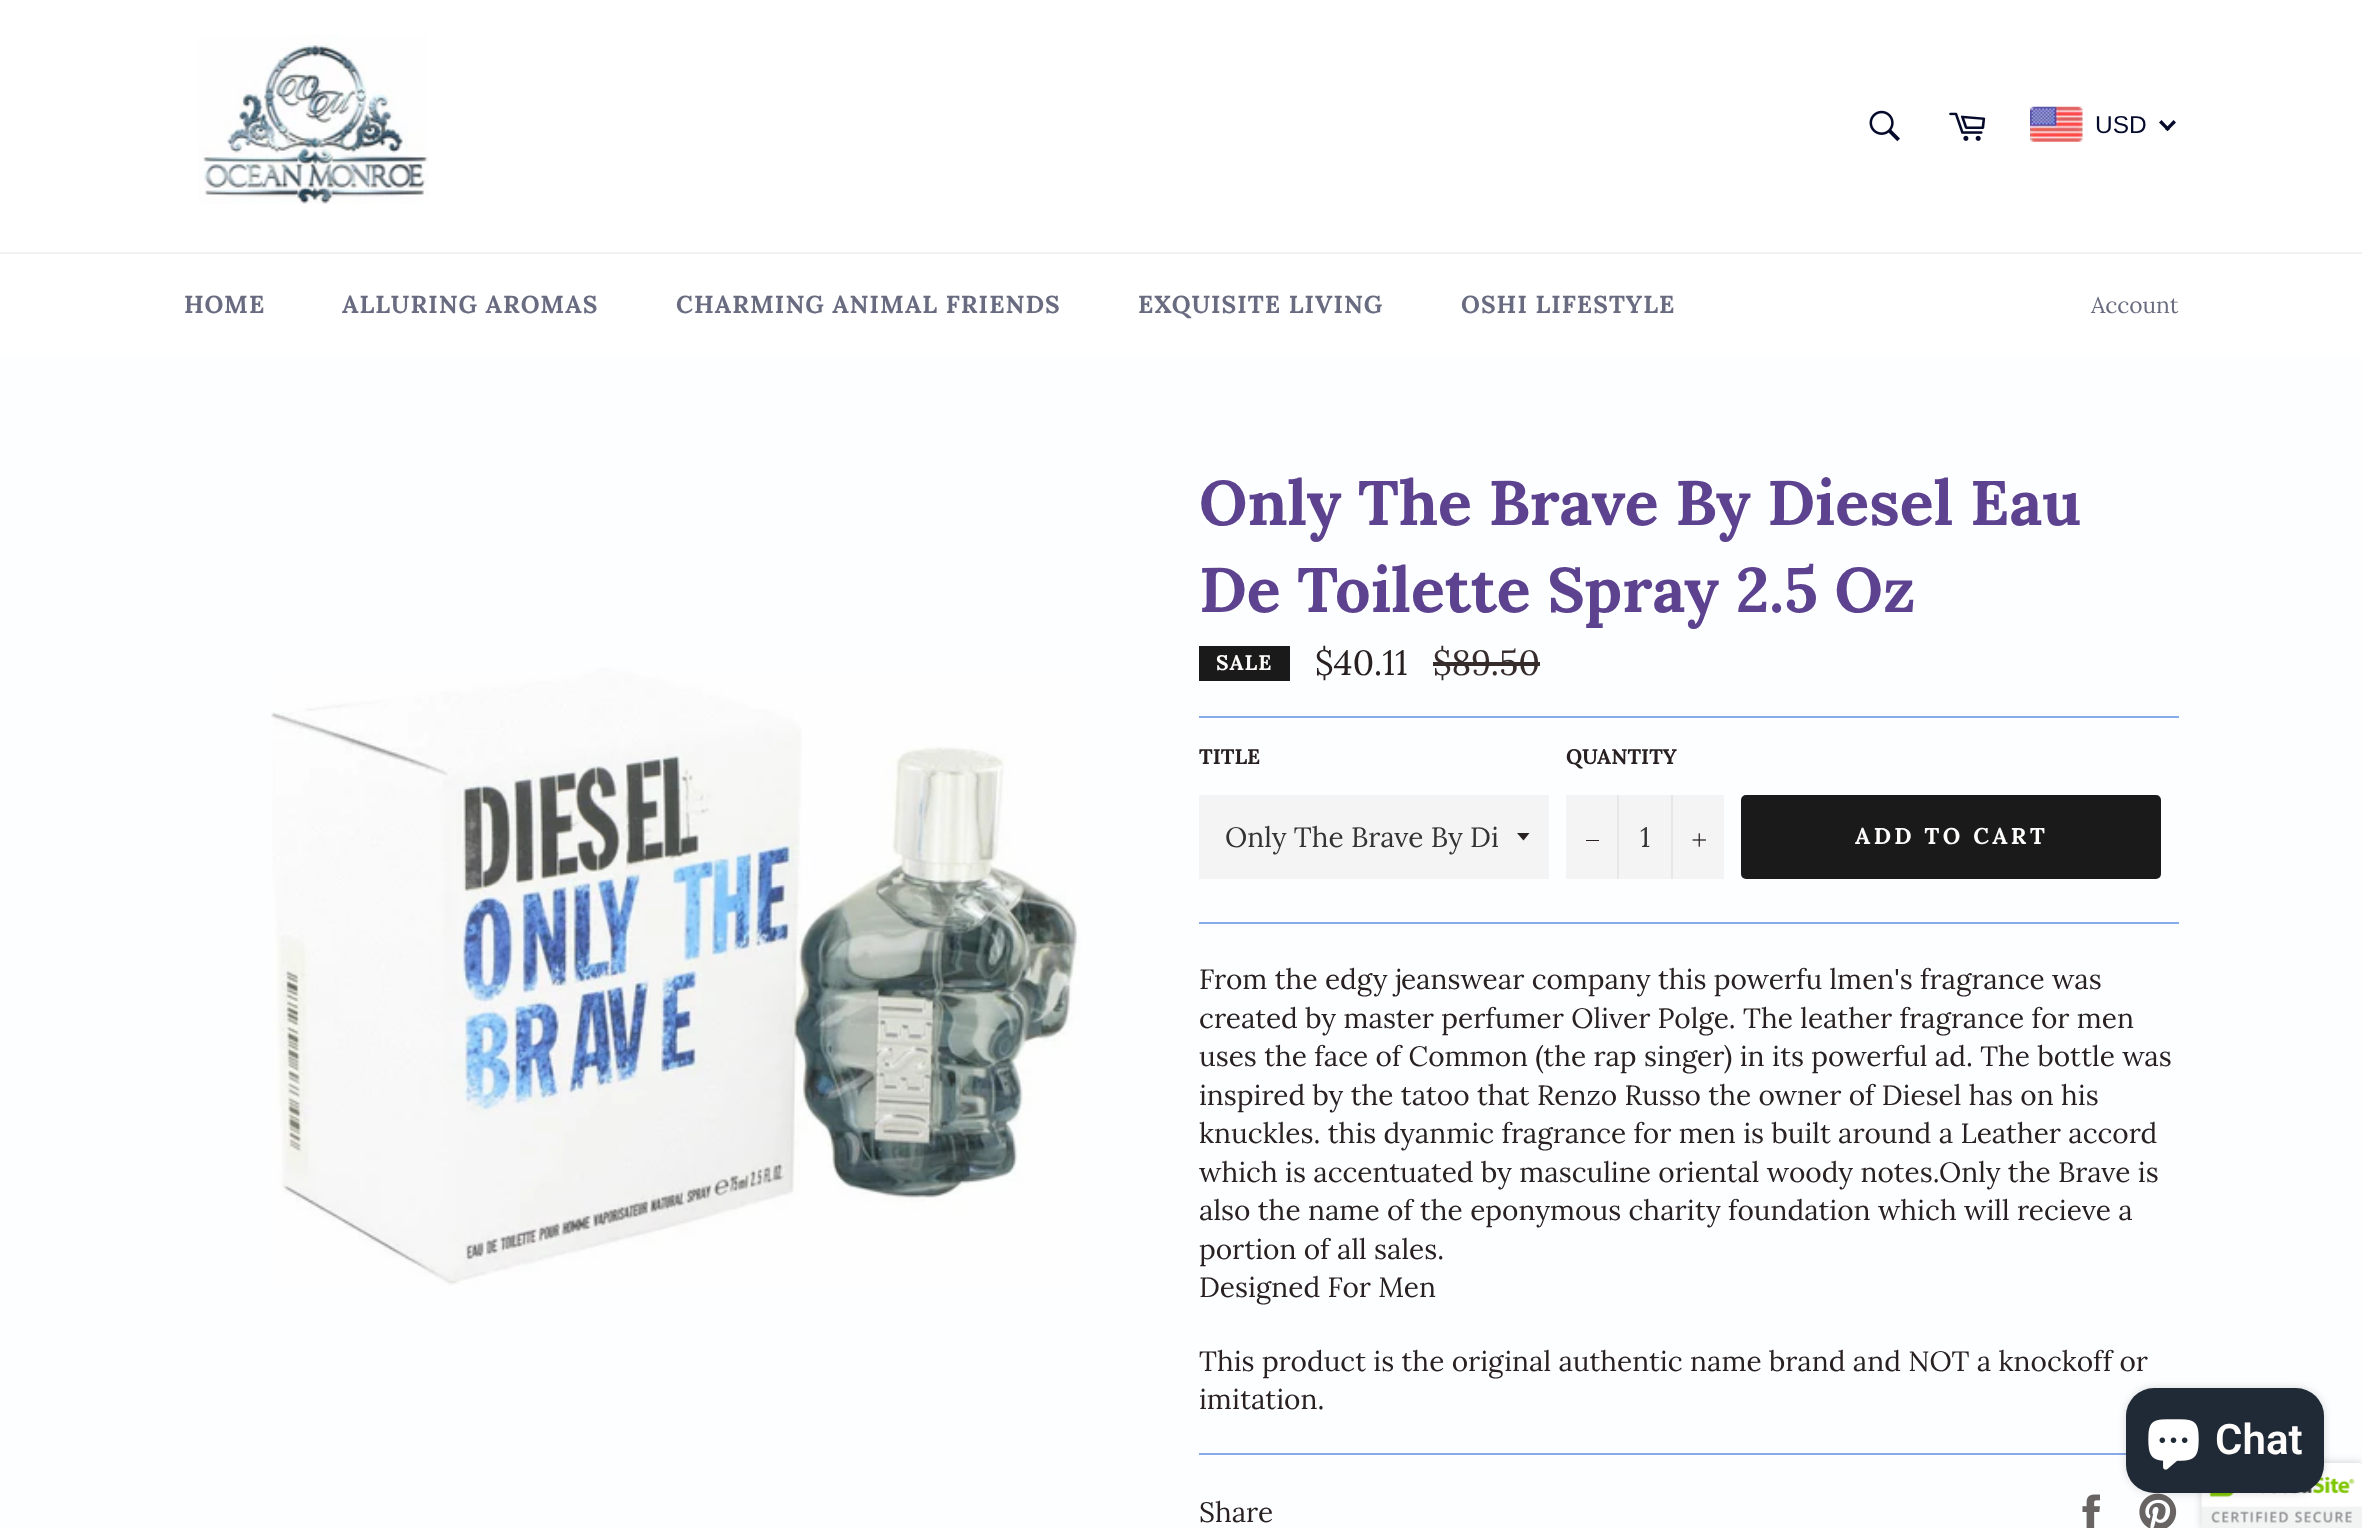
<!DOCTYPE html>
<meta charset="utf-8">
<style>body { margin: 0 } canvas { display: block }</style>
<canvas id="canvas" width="2362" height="1528"></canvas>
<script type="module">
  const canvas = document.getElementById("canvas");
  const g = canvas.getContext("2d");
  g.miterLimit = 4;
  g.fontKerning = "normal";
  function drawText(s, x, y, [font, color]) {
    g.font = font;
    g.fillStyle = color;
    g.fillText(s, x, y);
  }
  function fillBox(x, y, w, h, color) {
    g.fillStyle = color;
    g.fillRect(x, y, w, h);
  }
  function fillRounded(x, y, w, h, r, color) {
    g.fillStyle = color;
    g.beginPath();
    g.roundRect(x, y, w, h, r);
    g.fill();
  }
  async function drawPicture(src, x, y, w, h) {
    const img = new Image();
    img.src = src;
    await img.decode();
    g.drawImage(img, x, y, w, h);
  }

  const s1 = ["24.5px Liberation Sans", "#050A2B"];
  const s2 = ["bold 24.5px Lora", "#696C80"];
  const s3 = ["22.75px Lora", "#696C80"];
  const s4 = ["bold 63px Lora", "#5D4290"];
  const s5 = ["bold 21px Lora", "#FFFCFC"];
  const s6 = ["35px Lora", "#292121"];
  const s7 = ["35px Lora", "#372C2C"];
  const s8 = ["bold 21px Lora", "#292121"];
  const s9 = ["28px Lora", "#333333"];
  const s10 = ["bold 22.75px Lora", "#FFFCFC"];
  const s11 = ["28px Lora", "#292121"];
  const s12 = ["600 42px Roboto", "#FFFCFC"];

  fillBox(0, 0, 2362, 1528, "#FFFFFF");
  await drawPicture("pic1.png", 198, 35, 231, 169);
  await drawPicture("pic2.png", 1869, 110, 31, 32);
  await drawPicture("pic3.png", 1949, 112, 37, 29);
  await drawPicture("pic4.png", 2030, 106, 53, 36);
  drawText("USD", 2095, 133, s1);
  g.beginPath();
  g.moveTo(2173.5, 120);
  g.lineTo(2176, 122.5);
  g.lineTo(2167.5, 131);
  g.lineTo(2165, 129);
  g.closePath();
  g.fill();
  g.beginPath();
  g.moveTo(2161.5, 120);
  g.lineTo(2170, 129);
  g.lineTo(2167.5, 131);
  g.lineTo(2159, 122.5);
  g.closePath();
  g.fill();
  fillBox(0, 252, 2362, 2, "#F2F2F2");
  g.letterSpacing = "1.05px";
  drawText("HOME", 184, 313, s2);
  drawText("ALLURING AROMAS", 342, 313, s2);
  drawText("CHARMING ANIMAL FRIENDS", 676, 313, s2);
  drawText("EXQUISITE LIVING", 1138, 313, s2);
  drawText("OSHI LIFESTYLE", 1461, 313, s2);
  g.letterSpacing = "0px";
  drawText("Account", 2091, 313, s3);
  fillBox(0, 357, 2362, 1171, "#FCFEFF");
  await drawPicture("pic5.png", 271, 667, 810, 619);
  drawText("Only The Brave By Diesel Eau", 1199, 525, s4);
  drawText("De Toilette Spray 2.5 Oz", 1199, 612, s4);
  fillBox(1199, 646, 91, 35, "#1A1A1A");
  g.letterSpacing = "1.05px";
  drawText("SALE", 1216, 670, s5);
  g.letterSpacing = "0px";
  drawText("$40.11", 1315, 675, s6);
  drawText("$89.50", 1433, 675, s7);
  fillBox(1433, 662, 107, 4, "#372C2C");
  fillBox(1199, 716, 980, 2, "#86AAEA");
  drawText("TITLE", 1199, 764, s8);
  fillBox(1199, 795, 350, 84, "#F4F4F4");
  g.fillStyle = "#292121";
  g.beginPath();
  g.moveTo(1517, 833);
  g.lineTo(1523.5, 840.5);
  g.lineTo(1529.5, 833);
  g.closePath();
  g.fill();
  drawText("Only The Brave By Di", 1225, 847, s9);
  drawText("QUANTITY", 1566, 764, s8);
  fillBox(1566, 795, 158, 84, "#F4F4F4");
  fillBox(1617, 795, 2, 84, "#E7E7E7");
  fillBox(1586, 840, 13, 1, "#292121");
  drawText("1", 1640, 847, s9);
  fillBox(1671, 795, 2, 84, "#E7E7E7");
  await drawPicture("pic6.png", 1692, 833, 14, 14);
  fillRounded(1741, 795, 420, 84, 5, "#1A1A1A");
  g.letterSpacing = "3.5px";
  drawText("ADD TO CART", 1855, 844, s10);
  fillBox(1199, 922, 980, 2, "#86AAEA");
  g.letterSpacing = "0px";
  drawText("From the edgy jeanswear company this powerfu lmen's fragrance was", 1199, 989, s11);
  drawText("created by master perfumer Oliver Polge. The leather fragrance for men", 1199, 1028, s11);
  drawText("uses the face of Common (the rap singer) in its powerful ad. The bottle was", 1199, 1066, s11);
  drawText("inspired by the tatoo that Renzo Russo the owner of Diesel has on his", 1199, 1105, s11);
  drawText("knuckles. this dyanmic fragrance for men is built around a Leather accord", 1199, 1143, s11);
  drawText("which is accentuated by masculine oriental woody notes.Only the Brave is", 1199, 1182, s11);
  drawText("also the name of the eponymous charity foundation which will recieve a", 1199, 1220, s11);
  drawText("portion of all sales.", 1199, 1259, s11);
  drawText("Designed For Men", 1199, 1297, s11);
  drawText("This product is the original authentic name brand and NOT a knockoff or", 1199, 1371, s11);
  drawText("imitation.", 1199, 1409, s11);
  fillBox(1199, 1453, 927, 2, "#86AAEA");
  drawText("Share", 1199, 1522, s11);
  await drawPicture("pic7.png", 2082, 1494, 18, 34);
  await drawPicture("pic8.png", 2139, 1493, 38, 35);
  g.fillStyle = "rgba(0, 0, 0, 0.2)";
  g.filter = "blur(4.5px)";
  g.beginPath();
  g.roundRect(2202, 1463, 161, 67, 4);
  g.fill();
  g.filter = "none";
  fillBox(2359, 1463, 3, 3, "#FFFFFF");
  await drawPicture("pic10.png", 2201, 1463, 161, 65);
  g.fillStyle = "rgba(0, 0, 0, 0.15)";
  g.filter = "blur(4.5px)";
  g.beginPath();
  g.roundRect(2126, 1388, 198, 105, 28);
  g.fill();
  g.filter = "none";
  fillRounded(2126, 1388, 198, 105, 28, "#202A36");
  await drawPicture("pic9.png", 2148, 1419, 51, 51);
  drawText("Chat", 2215, 1454, s12);
</script>
